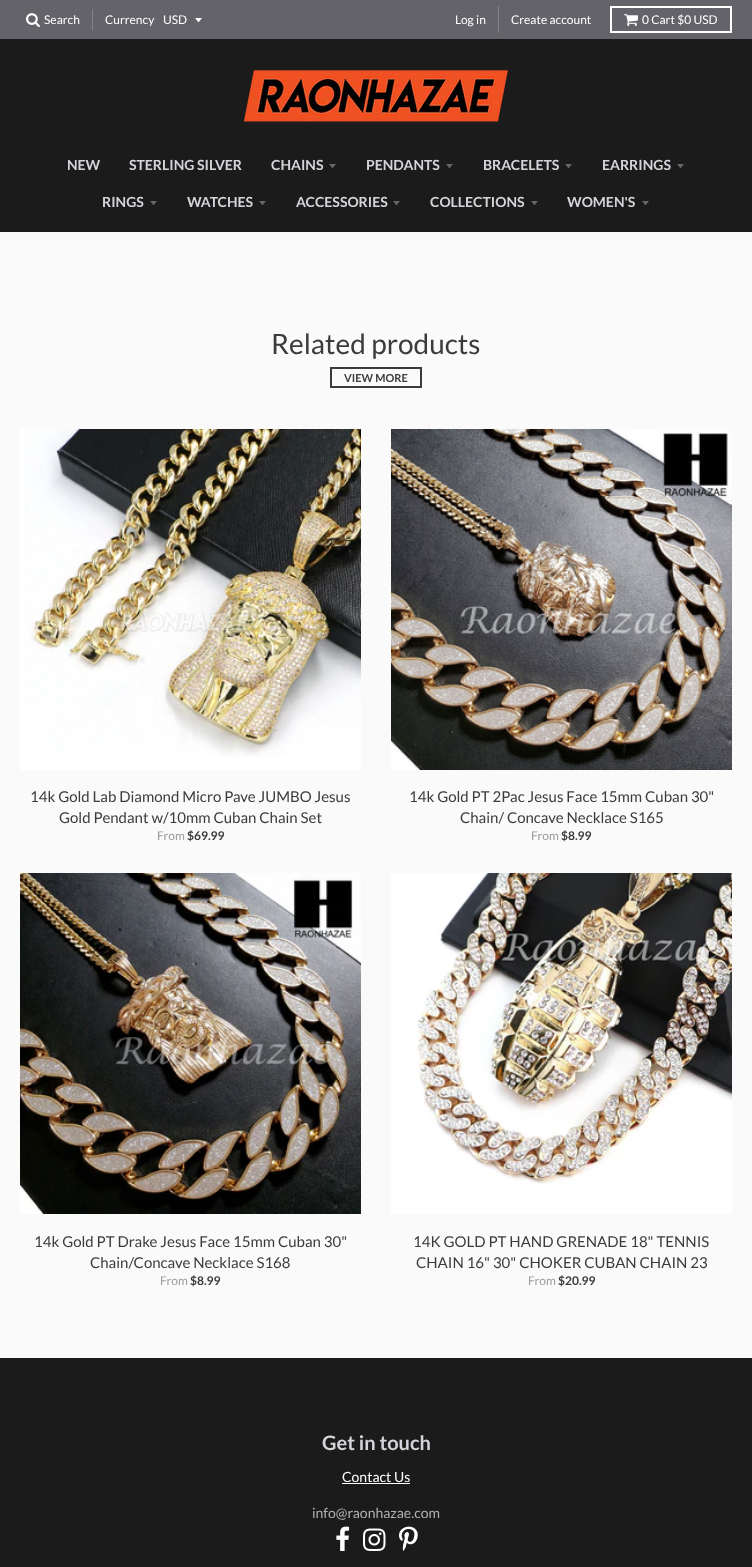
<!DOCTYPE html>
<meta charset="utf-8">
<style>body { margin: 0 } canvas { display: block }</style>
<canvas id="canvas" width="752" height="1567"></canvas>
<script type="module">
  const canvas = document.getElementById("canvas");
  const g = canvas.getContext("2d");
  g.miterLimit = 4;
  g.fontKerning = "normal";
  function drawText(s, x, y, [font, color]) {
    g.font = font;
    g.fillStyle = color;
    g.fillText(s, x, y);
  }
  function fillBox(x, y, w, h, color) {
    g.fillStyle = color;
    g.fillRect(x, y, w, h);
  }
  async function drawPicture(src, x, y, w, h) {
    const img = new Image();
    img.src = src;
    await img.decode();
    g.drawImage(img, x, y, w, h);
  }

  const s1 = ["12px Lato", "#FFFFFF"];
  const s2 = ["bold 14px Lato", "#D6D4DA"];
  const s3 = ["28px Lato", "#3B3A3D"];
  const s4 = ["bold 11px Lato", "#3B3A3D"];
  const s5 = ["15px Lato", "#3B3A3D"];
  const s6 = ["12px Lato", "#9A9A9B"];
  const s7 = ["bold 12px Lato", "#3B3A3D"];
  const s8 = ["bold 20px Lato", "#D6D4DA"];
  const s9 = ["14px Lato", "#FFFFFF"];
  const s10 = ["14px Lato", "#B0AFB3"];

  fillBox(0, 0, 752, 1567, "#FAFAFA");
  fillBox(0, 0, 752, 39, "#65636A");
  await drawPicture("pic1.png", 26, 13, 14, 14);
  drawText("Search", 44, 24, s1);
  fillBox(92, 9, 1, 21, "#838287");
  drawText("Currency", 105, 24, s1);
  g.beginPath();
  g.moveTo(195, 18);
  g.bezierCurveTo(199.5, 23.5, 197.5, 23.5, 202, 18);
  g.closePath();
  g.fill();
  drawText("USD", 163, 24, s1);
  fillBox(498, 6, 1, 27, "#838287");
  drawText("Log in", 455, 24, s1);
  drawText("Create account", 511, 24, s1);
  g.strokeStyle = "#FFFFFF";
  g.lineWidth = 2;
  g.strokeRect(611, 7, 120, 25);
  await drawPicture("pic2.png", 624, 14, 14, 12);
  drawText("0 Cart $0 USD", 642, 24, s1);
  fillBox(0, 39, 752, 193, "#1B1B1B");
  await drawPicture("pic3.png", 243, 70, 266, 52);
  drawText("NEW", 67, 170, s2);
  drawText("STERLING SILVER", 129, 170, s2);
  drawText("CHAINS", 271, 170, s2);
  g.fillStyle = "#666567";
  g.beginPath();
  g.moveTo(329, 164);
  g.bezierCurveTo(333.5, 169.5, 331.5, 169.5, 336, 164);
  g.closePath();
  g.fill();
  drawText("PENDANTS", 366, 170, s2);
  g.fillStyle = "#666567";
  g.beginPath();
  g.moveTo(446, 164);
  g.bezierCurveTo(450.5, 169.5, 448.5, 169.5, 453, 164);
  g.closePath();
  g.fill();
  drawText("BRACELETS", 483, 170, s2);
  g.fillStyle = "#666567";
  g.beginPath();
  g.moveTo(565, 164);
  g.bezierCurveTo(569.5, 169.5, 567.5, 169.5, 572, 164);
  g.closePath();
  g.fill();
  drawText("EARRINGS", 602, 170, s2);
  g.fillStyle = "#666567";
  g.beginPath();
  g.moveTo(677, 164);
  g.bezierCurveTo(681.5, 169.5, 679.5, 169.5, 684, 164);
  g.closePath();
  g.fill();
  drawText("RINGS", 102, 207, s2);
  g.fillStyle = "#666567";
  g.beginPath();
  g.moveTo(150, 201);
  g.bezierCurveTo(154.5, 206.5, 152.5, 206.5, 157, 201);
  g.closePath();
  g.fill();
  drawText("WATCHES", 187, 207, s2);
  g.fillStyle = "#666567";
  g.beginPath();
  g.moveTo(259, 201);
  g.bezierCurveTo(263.5, 206.5, 261.5, 206.5, 266, 201);
  g.closePath();
  g.fill();
  drawText("ACCESSORIES", 296, 207, s2);
  g.fillStyle = "#666567";
  g.beginPath();
  g.moveTo(393, 201);
  g.bezierCurveTo(397.5, 206.5, 395.5, 206.5, 400, 201);
  g.closePath();
  g.fill();
  drawText("COLLECTIONS", 430, 207, s2);
  g.fillStyle = "#666567";
  g.beginPath();
  g.moveTo(531, 201);
  g.bezierCurveTo(535.5, 206.5, 533.5, 206.5, 538, 201);
  g.closePath();
  g.fill();
  drawText("WOMEN'S", 567, 207, s2);
  g.fillStyle = "#666567";
  g.beginPath();
  g.moveTo(642, 201);
  g.bezierCurveTo(646.5, 206.5, 644.5, 206.5, 649, 201);
  g.closePath();
  g.fill();
  drawText("Related products", 271, 354, s3);
  g.strokeStyle = "#3B3A3D";
  g.strokeRect(331, 368, 90, 19);
  drawText("VIEW MORE", 344, 382, s4);
  fillBox(20, 429, 341, 341, "#FFFFFF");
  await drawPicture("pic4.png", 24, 429, 337, 328);
  drawText("14k Gold Lab Diamond Micro Pave JUMBO Jesus", 30, 802, s5);
  drawText("Gold Pendant w/10mm Cuban Chain Set", 59, 823, s5);
  drawText("From", 157, 840, s6);
  drawText("$69.99", 187, 840, s7);
  await drawPicture("pic5.png", 391, 429, 341, 341);
  drawText("14k Gold PT 2Pac Jesus Face 15mm Cuban 30\"", 409, 802, s5);
  drawText("Chain/ Concave Necklace S165", 460, 823, s5);
  drawText("From", 531, 840, s6);
  drawText("$8.99", 561, 840, s7);
  await drawPicture("pic6.png", 20, 873, 341, 341);
  drawText("14k Gold PT Drake Jesus Face 15mm Cuban 30\"", 34, 1247, s5);
  drawText("Chain/Concave Necklace S168", 90, 1268, s5);
  drawText("From", 160, 1285, s6);
  drawText("$8.99", 190, 1285, s7);
  fillBox(391, 873, 341, 341, "#FFFFFF");
  await drawPicture("pic7.png", 417, 873, 315, 312);
  drawText("14K GOLD PT HAND GRENADE 18\" TENNIS", 413, 1247, s5);
  drawText("CHAIN 16\" 30\" CHOKER CUBAN CHAIN 23", 416, 1268, s5);
  drawText("From", 528, 1285, s6);
  drawText("$20.99", 558, 1285, s7);
  fillBox(0, 1358, 752, 209, "#1B1B1B");
  drawText("Get in touch", 322, 1450, s8);
  drawText("Contact Us", 342, 1482, s9);
  fillBox(342, 1483, 68, 1, "#FFFFFF");
  drawText("info@raonhazae.com", 312, 1518, s10);
  await drawPicture("pic8.png", 336, 1526, 14, 25);
  await drawPicture("pic9.png", 363, 1528, 23, 23);
  await drawPicture("pic10.png", 399, 1526, 19, 25);
</script>
